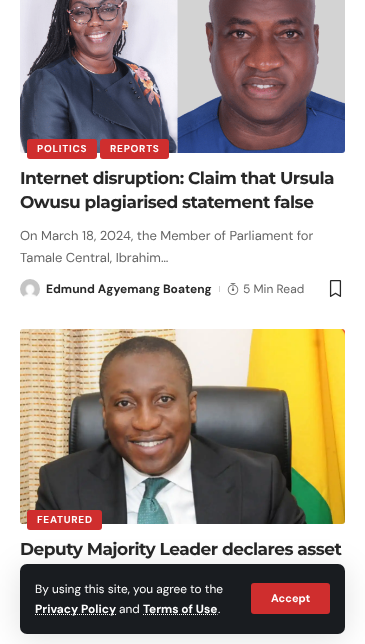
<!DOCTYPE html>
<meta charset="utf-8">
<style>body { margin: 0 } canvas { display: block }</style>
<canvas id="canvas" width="365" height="644"></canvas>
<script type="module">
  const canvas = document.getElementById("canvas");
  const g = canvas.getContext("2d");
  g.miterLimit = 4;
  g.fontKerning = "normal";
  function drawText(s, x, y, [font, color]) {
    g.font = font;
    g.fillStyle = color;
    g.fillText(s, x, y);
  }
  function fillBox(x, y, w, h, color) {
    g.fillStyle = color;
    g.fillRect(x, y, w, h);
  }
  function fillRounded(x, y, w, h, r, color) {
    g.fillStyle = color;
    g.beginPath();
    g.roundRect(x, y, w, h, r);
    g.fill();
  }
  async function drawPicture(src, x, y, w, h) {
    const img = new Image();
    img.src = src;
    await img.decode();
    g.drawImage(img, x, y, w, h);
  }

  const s1 = ["bold 10px DM Sans", "#FFFFFF"];
  const s2 = ["bold 17px Montserrat", "#282828"];
  const s3 = ["13px DM Sans", "#666666"];
  const s4 = ["bold 12px DM Sans", "#282828"];
  const s5 = ["12px DM Sans", "#666666"];
  const s6 = ["11.9px DM Sans", "#FFFFFF"];
  const s7 = ["bold 11.9px DM Sans", "#FFFFFF"];
  const s8 = ["bold 11px DM Sans", "#FFFFFF"];

  fillBox(0, 0, 365, 644, "#FFFFFF");
  await drawPicture("pic1.png", 20, 0, 325, 153);
  fillRounded(27, 139, 70, 20, 3, "#CF2E2E");
  g.letterSpacing = "0.75px";
  drawText("POLITICS", 37, 152, s1);
  fillRounded(100, 139, 69, 20, 3, "#CF2E2E");
  drawText("REPORTS", 110, 152, s1);
  g.letterSpacing = "-0.5px";
  drawText("Internet disruption: Claim that Ursula", 20, 184, s2);
  drawText("Owusu plagiarised statement false", 20, 208, s2);
  g.letterSpacing = "0px";
  drawText("On March 18, 2024, the Member of Parliament for", 20, 240, s3);
  drawText("Tamale Central, Ibrahim…", 20, 262, s3);
  await drawPicture("pic2.png", 20, 279, 20, 18);
  drawText("Edmund Agyemang Boateng", 46, 293, s4);
  fillBox(219, 286, 1, 6, "#D1D1D1");
  await drawPicture("pic3.png", 227, 283, 12, 12);
  drawText("5 Min Read", 243, 293, s5);
  await drawPicture("pic4.png", 329, 280, 13, 17);
  await drawPicture("pic5.png", 20, 329, 325, 195);
  fillRounded(27, 510, 75, 20, 3, "#CF2E2E");
  g.letterSpacing = "0.75px";
  drawText("FEATURED", 37, 523, s1);
  g.letterSpacing = "-0.5px";
  drawText("Deputy Majority Leader declares asset", 20, 555, s2);
  g.fillStyle = "rgba(0, 0, 0, 0.12)";
  g.filter = "blur(15px)";
  g.beginPath();
  g.roundRect(20, 568, 325, 70, 7);
  g.fill();
  g.filter = "none";
  fillRounded(20, 564, 325, 70, 7, "#191C20");
  g.letterSpacing = "0px";
  drawText("By using this site, you agree to the", 35, 593, s6);
  g.beginPath();
  g.moveTo(35, 614.5);
  g.lineTo(116, 614.5);
  g.strokeStyle = "#FFFFFF";
  g.setLineDash([1, 1]);
  g.stroke();
  drawText("Privacy Policy", 35, 613, s7);
  drawText("and", 119, 613, s6);
  drawText("Terms of Use", 143, 613, s7);
  g.beginPath();
  g.moveTo(143, 614.5);
  g.lineTo(217.5, 614.5);
  g.stroke();
  drawText(".", 218, 613, s6);
  fillRounded(251, 583, 79, 31, 3, "#CF2E2E");
  drawText("Accept", 271, 602, s8);
</script>
